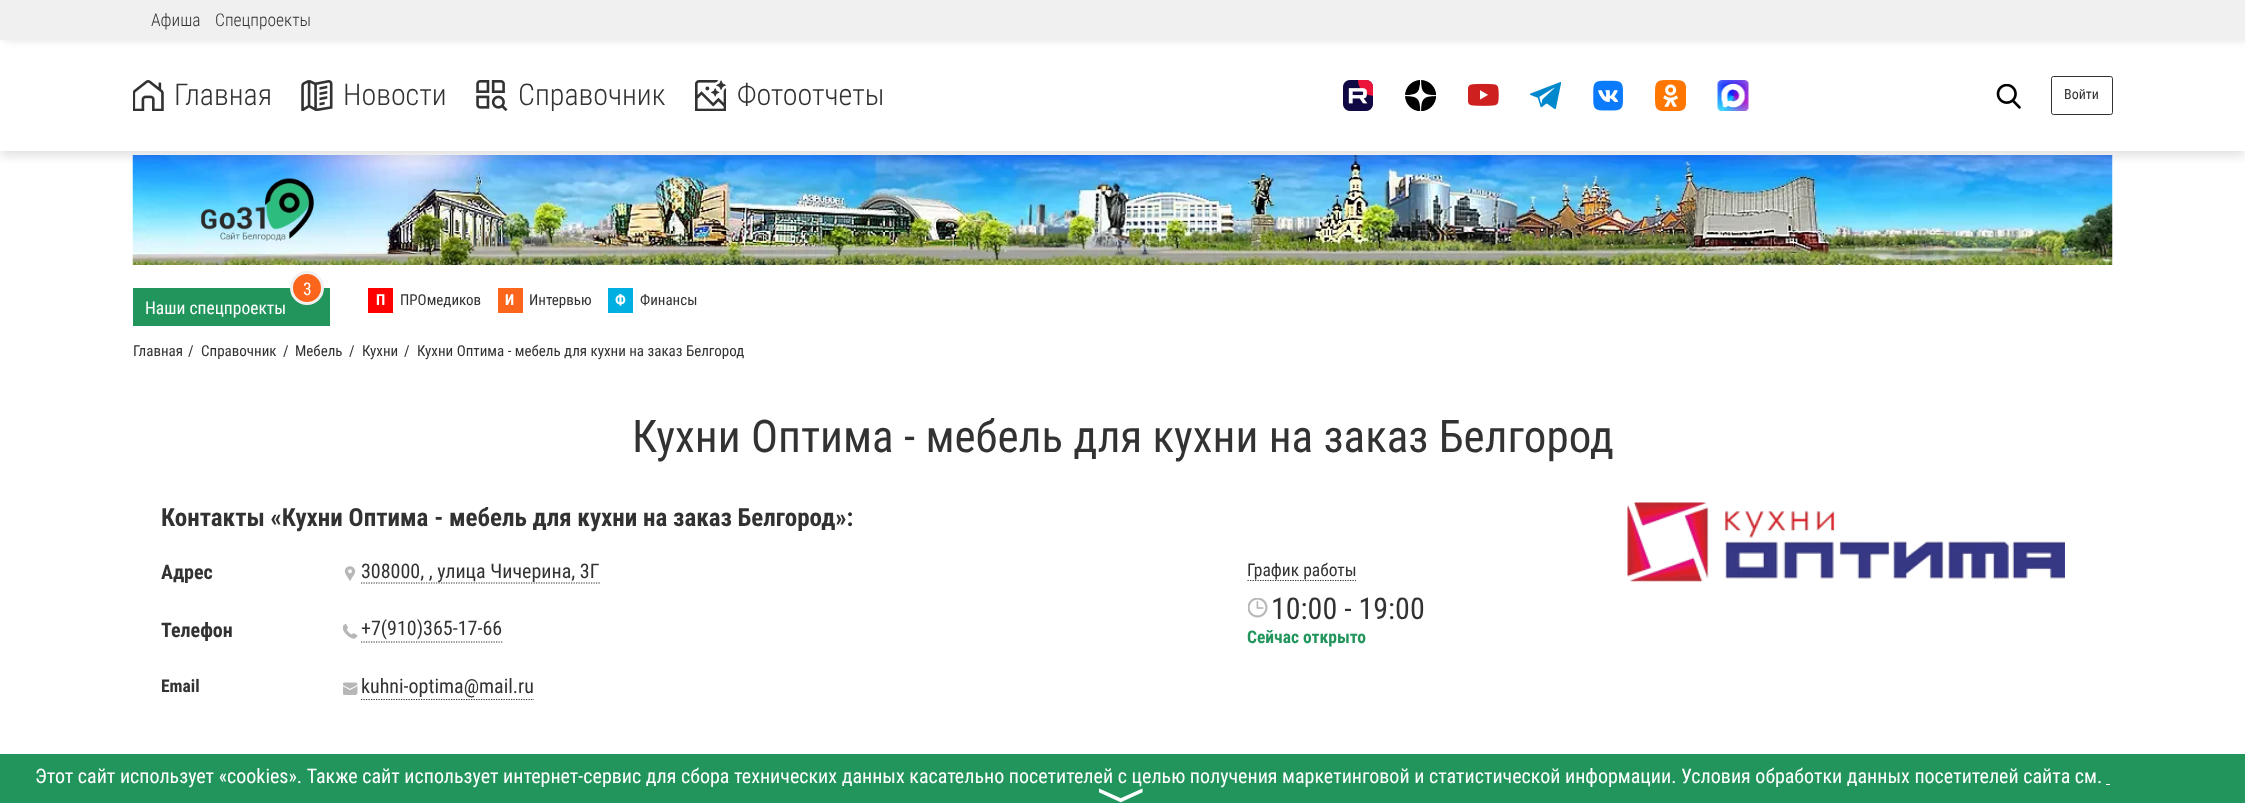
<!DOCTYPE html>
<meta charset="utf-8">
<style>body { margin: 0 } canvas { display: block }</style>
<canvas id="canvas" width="2245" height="803"></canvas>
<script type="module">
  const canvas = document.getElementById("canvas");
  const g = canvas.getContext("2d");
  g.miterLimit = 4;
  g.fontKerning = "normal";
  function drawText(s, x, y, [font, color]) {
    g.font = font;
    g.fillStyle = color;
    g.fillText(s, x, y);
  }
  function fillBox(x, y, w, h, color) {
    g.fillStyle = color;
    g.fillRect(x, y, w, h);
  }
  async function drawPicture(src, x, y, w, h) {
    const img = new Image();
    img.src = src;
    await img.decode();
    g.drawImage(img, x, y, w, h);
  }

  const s1 = ["300 17.5px Roboto Condensed", "#323232"];
  const s2 = ["300 30px Roboto Condensed", "#323232"];
  const s3 = ["14px Roboto Condensed", "#323232"];
  const s4 = ["17.5px Roboto Condensed", "#FFFFFF"];
  const s5 = ["bold 15px Roboto Condensed", "#FFFFFF"];
  const s6 = ["15px Roboto Condensed", "#323232"];
  const s7 = ["45px Roboto Condensed", "#323232"];
  const s8 = ["bold 25px Roboto Condensed", "#323232"];
  const s9 = ["bold 20px Roboto Condensed", "#323232"];
  const s10 = ["20px Roboto Condensed", "#323232"];
  const s11 = ["bold 17.5px Roboto Condensed", "#323232"];
  const s12 = ["17.5px Roboto Condensed", "#323232"];
  const s13 = ["30px Roboto Condensed", "#323232"];
  const s14 = ["bold 17.5px Roboto Condensed", "#22955D"];
  const s15 = ["20px Roboto Condensed", "#FFFFFF"];

  fillBox(0, 0, 2245, 803, "#FFFFFF");
  await drawPicture("pic13.png", 132, 155, 1981, 110);
  g.save();
  g.beginPath();
  g.rect(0, 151, 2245, 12);
  g.clip();
  g.fillStyle = "rgba(78, 78, 78, 0.2)";
  g.filter = "blur(6px)";
  g.beginPath();
  g.rect(0, 4, 2245, 151);
  g.fill();
  g.filter = "none";
  g.restore();
  g.fillStyle = "rgba(50, 50, 50, 0.15)";
  g.filter = "blur(4px)";
  g.beginPath();
  g.rect(4, 0, 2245, 40);
  g.fill();
  g.filter = "none";
  fillBox(0, 0, 2245, 40, "#F0F0F0");
  drawText("Афиша", 151, 26, s1);
  drawText("Спецпроекты", 215, 26, s1);
  await drawPicture("pic1.png", 133, 80, 31, 31);
  drawText("Главная", 174, 105, s2);
  await drawPicture("pic2.png", 301, 80, 32, 31);
  drawText("Новости", 343, 105, s2);
  await drawPicture("pic3.png", 476, 80, 32, 31);
  drawText("Справочник", 518, 105, s2);
  await drawPicture("pic4.png", 695, 80, 31, 31);
  drawText("Фотоотчеты", 737, 105, s2);
  await drawPicture("pic5.png", 1343, 80, 30, 31);
  await drawPicture("pic6.png", 1405, 80, 31, 31);
  await drawPicture("pic7.png", 1468, 83, 31, 23);
  await drawPicture("pic8.png", 1530, 82, 31, 28);
  await drawPicture("pic9.png", 1593, 80, 30, 31);
  await drawPicture("pic10.png", 1655, 80, 31, 31);
  await drawPicture("pic11.png", 1717, 80, 32, 31);
  await drawPicture("pic12.png", 1996, 84, 25, 25);
  g.beginPath();
  g.roundRect(2051.5, 76.5, 61, 38, 2);
  g.strokeStyle = "#323232";
  g.stroke();
  drawText("Войти", 2064, 99, s3);
  await drawPicture("pic14.png", 201, 178, 113, 63);
  fillBox(133, 288, 197, 38, "#22955D");
  g.fillStyle = "#FB661C";
  g.beginPath();
  g.arc(307, 288, 15.5, 0, Math.PI * 2);
  g.fill();
  g.strokeStyle = "#F0F0F0";
  g.lineWidth = 3;
  g.stroke();
  drawText("3", 303, 295, s4);
  drawText("Наши спецпроекты", 145, 314, s4);
  fillBox(368, 288, 25, 25, "#FF0000");
  drawText("П", 376, 305, s5);
  drawText("ПРОмедиков", 400, 305, s6);
  fillBox(498, 288, 25, 25, "#FB661C");
  drawText("И", 505, 305, s5);
  drawText("Интервью", 529, 305, s6);
  fillBox(608, 288, 25, 25, "#00AFE1");
  drawText("Ф", 615, 305, s5);
  drawText("Финансы", 640, 305, s6);
  drawText("Главная", 133, 356, s6);
  drawText("/", 188, 356, s6);
  drawText("Справочник", 201, 356, s6);
  drawText("/", 283, 356, s6);
  drawText("Мебель", 295, 356, s6);
  drawText("/", 349, 356, s6);
  drawText("Кухни", 362, 356, s6);
  drawText("/", 404, 356, s6);
  drawText("Кухни Оптима - мебель для кухни на заказ Белгород", 417, 356, s6);
  drawText("Кухни Оптима - мебель для кухни на заказ Белгород", 632, 452, s7);
  drawText("Контакты «Кухни Оптима - мебель для кухни на заказ Белгород»:", 161, 526, s8);
  drawText("Адрес", 161, 579, s9);
  await drawPicture("pic15.png", 344, 566, 12, 15);
  g.beginPath();
  g.moveTo(361, 583);
  g.lineTo(600, 583);
  g.strokeStyle = "#323232";
  g.lineWidth = 1.2;
  g.setLineDash([1.25, 1.25]);
  g.stroke();
  drawText("308000, , улица Чичерина, 3Г", 361, 578, s10);
  drawText("Телефон", 161, 637, s9);
  await drawPicture("pic16.png", 343, 624, 15, 15);
  g.beginPath();
  g.moveTo(361, 642);
  g.lineTo(502.5, 642);
  g.stroke();
  drawText("+7(910)365-17-66", 361, 635, s10);
  drawText("Email", 161, 692, s11);
  await drawPicture("pic17.png", 343, 682, 15, 13);
  g.beginPath();
  g.moveTo(361, 699.5);
  g.lineTo(534, 699.5);
  g.stroke();
  drawText("kuhni-optima@mail.ru", 361, 693, s10);
  g.beginPath();
  g.moveTo(1247.5, 580.5);
  g.lineTo(1356, 580.5);
  g.stroke();
  drawText("График работы", 1247, 576, s12);
  await drawPicture("pic18.png", 1248, 598, 20, 20);
  drawText("10:00 - 19:00", 1271, 619, s13);
  drawText("Сейчас открыто", 1247, 643, s14);
  await drawPicture("pic19.png", 1627, 502, 438, 80);
  fillBox(0, 754, 2245, 49, "#22955D");
  drawText("Этот сайт использует «cookies». Также сайт использует интернет-сервис для сбора технических данных касательно посетителей с целью получения маркетинговой и статистической информации. Условия обработки данных посетителей сайта см.", 35, 783, s15);
  fillBox(2106, 784, 4, 1, "#FFFFFF");
  g.font = "50px FreeSans";
  g.save();
  g.translate(1106, 787);
  g.rotate(90 * Math.PI / 180);
  g.fillText("〉", 0, 0);
  g.restore();
</script>
